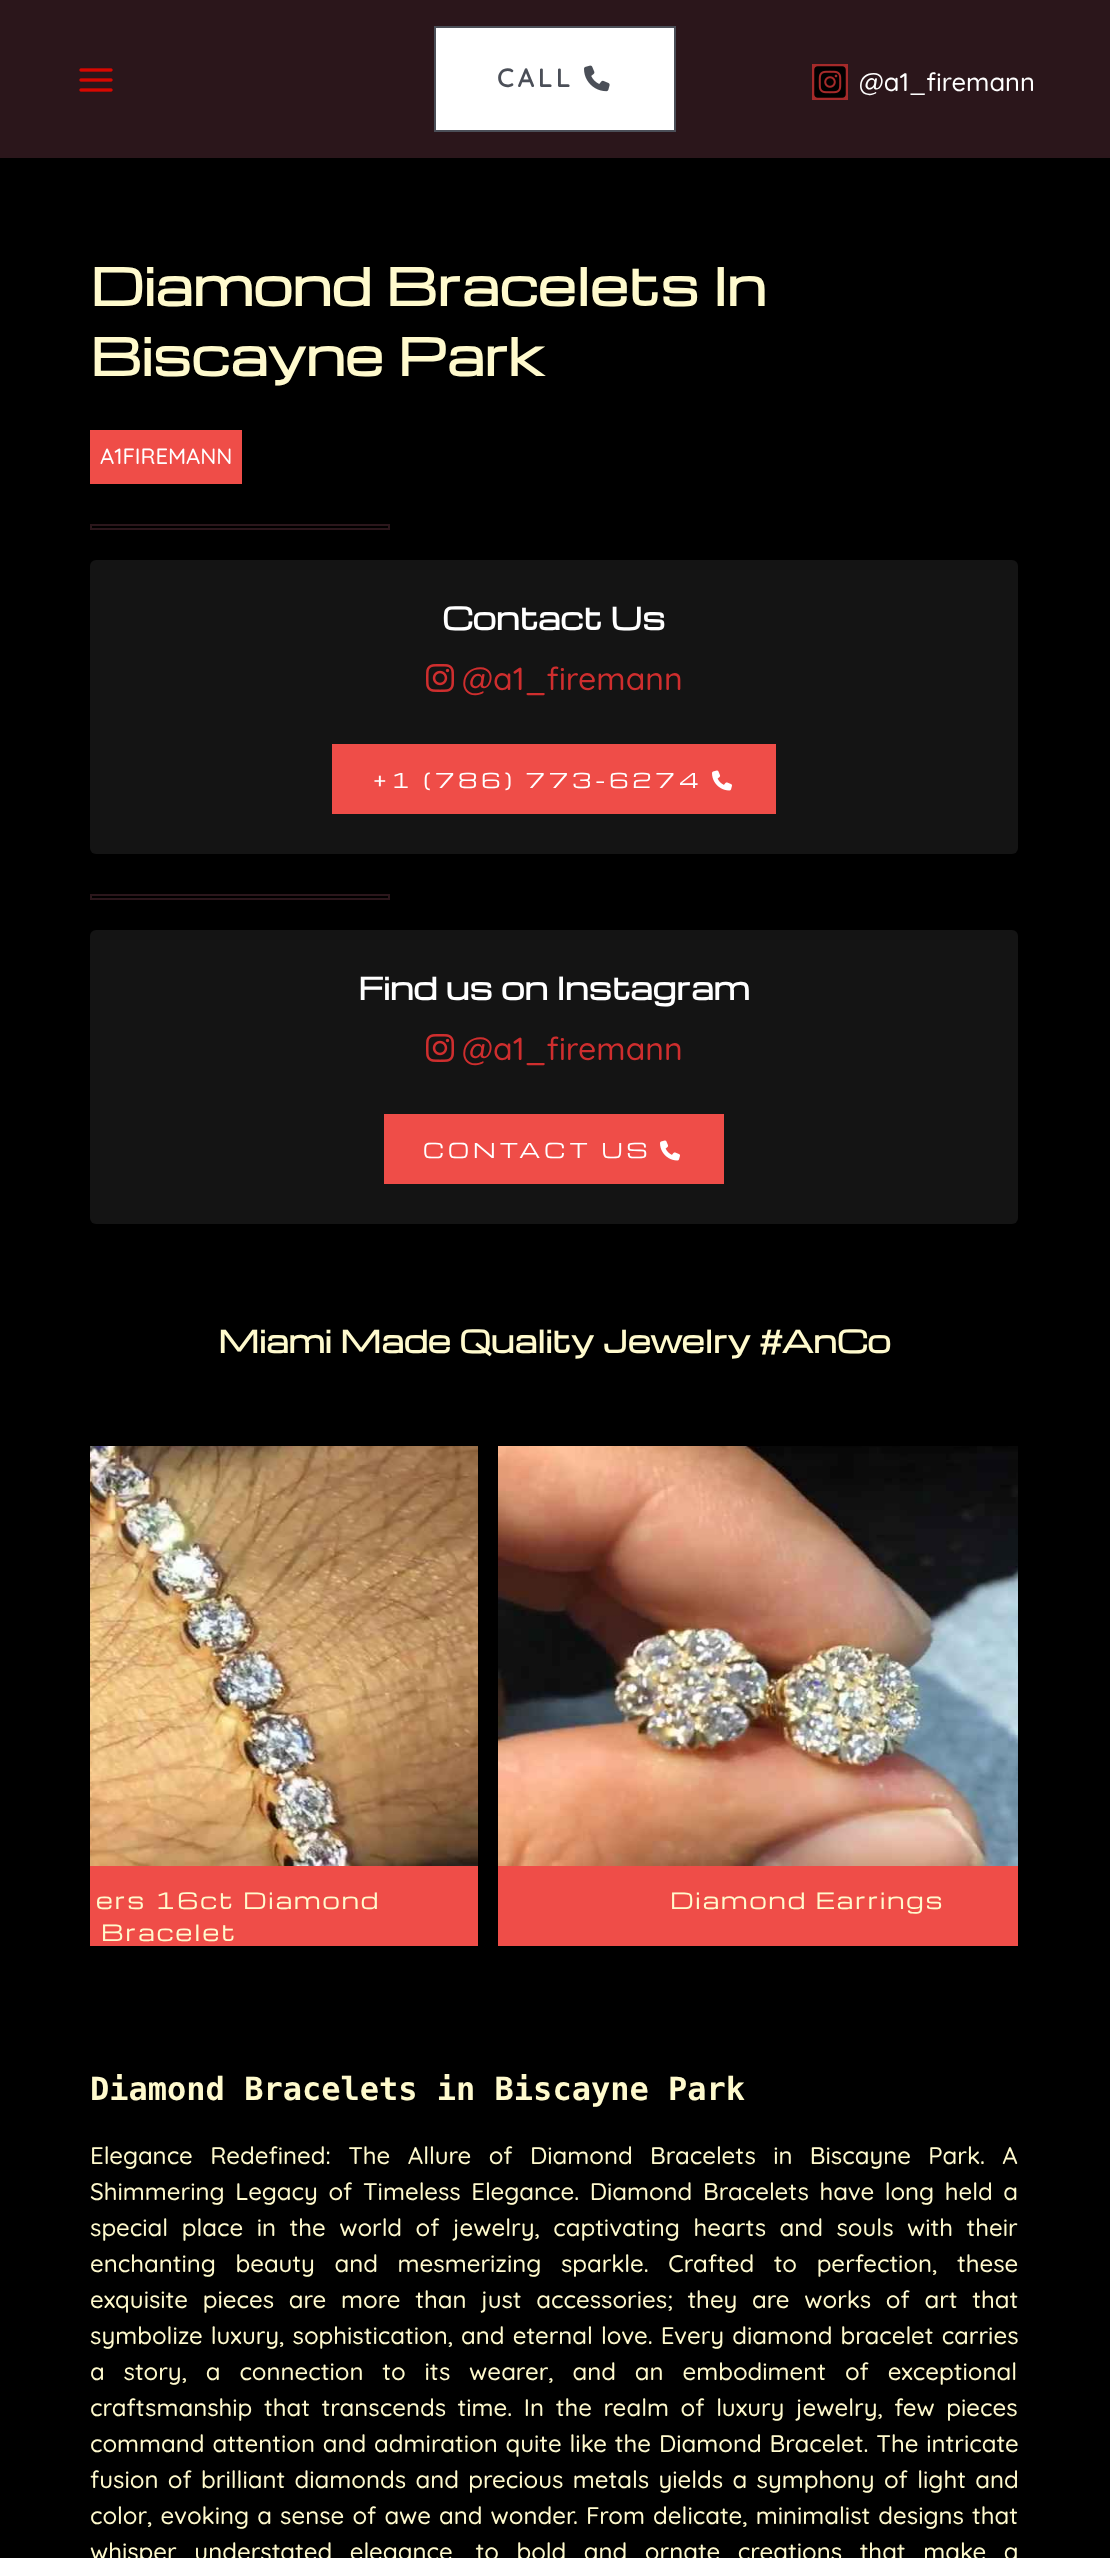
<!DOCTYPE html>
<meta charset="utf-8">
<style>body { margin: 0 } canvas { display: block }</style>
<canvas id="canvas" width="1110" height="2558"></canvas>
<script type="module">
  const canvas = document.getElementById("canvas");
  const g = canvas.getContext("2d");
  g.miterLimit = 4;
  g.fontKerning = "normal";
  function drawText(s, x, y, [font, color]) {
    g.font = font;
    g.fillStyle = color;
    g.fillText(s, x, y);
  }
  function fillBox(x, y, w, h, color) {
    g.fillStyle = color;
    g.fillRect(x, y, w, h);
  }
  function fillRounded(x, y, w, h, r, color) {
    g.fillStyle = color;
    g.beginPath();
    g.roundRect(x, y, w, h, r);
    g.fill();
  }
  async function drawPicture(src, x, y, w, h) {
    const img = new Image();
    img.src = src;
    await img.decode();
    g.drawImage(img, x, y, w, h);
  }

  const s1 = ["bold 25.5px Quicksand", "#4B4F58"];
  const s2 = ["500 25.5px Quicksand", "#FFFFFF"];
  const s3 = ["bold 50px Michroma", "#FFFACD"];
  const s4 = ["500 22px Quicksand", "#FFFFFF"];
  const s5 = ["bold 30px Michroma", "#FFFFFF"];
  const s6 = ["500 32px Quicksand", "#CF2E2E"];
  const s7 = ["20px Michroma", "#FFFFFF"];
  const s8 = ["bold 30px Michroma", "#FFFACD"];
  const s9 = ["21.9px Michroma", "#FFFACD"];
  const s10 = ["bold 32px DejaVu Sans Mono", "#FFFACD"];
  const s11 = ["500 24px Quicksand", "#FFFACD"];

  fillBox(0, 0, 1110, 2558, "#000000");
  fillBox(0, 0, 1110, 158, "#2B161B");
  await drawPicture("pic1.png", 79, 68, 34, 24);
  g.fillStyle = "#FFFFFF";
  g.beginPath();
  g.rect(435, 27, 240, 104);
  g.fill();
  g.strokeStyle = "#4B4F58";
  g.lineWidth = 2;
  g.stroke();
  g.letterSpacing = "4px";
  drawText("CALL", 497, 87, s1);
  await drawPicture("pic2.png", 584, 65, 26, 27);
  fillBox(812, 64, 36, 36, "#A52A2A");
  await drawPicture("pic3.png", 814, 66, 32, 32);
  g.letterSpacing = "0px";
  drawText("@a1_firemann", 859, 91, s2);
  drawText("Diamond Bracelets In", 90, 306, s3);
  drawText("Biscayne Park", 90, 376, s3);
  fillBox(90, 430, 152, 54, "#EF4D48");
  drawText("A1FIREMANN", 100, 464, s4);
  g.strokeStyle = "#2B161B";
  g.strokeRect(91, 525, 298, 4);
  fillRounded(90, 560, 928, 294, 6, "#141414");
  drawText("Contact Us", 442, 630, s5);
  await drawPicture("pic4.png", 426, 664, 28, 28);
  drawText("@a1_firemann", 462, 690, s6);
  fillBox(332, 744, 444, 70, "#EF4D48");
  g.letterSpacing = "4px";
  drawText("+1 (786) 773-6274", 373, 788, s7);
  await drawPicture("pic5.png", 712, 770, 20, 21);
  g.strokeRect(91, 895, 298, 4);
  fillRounded(90, 930, 928, 294, 6, "#141414");
  g.letterSpacing = "0px";
  drawText("Find us on Instagram", 358, 1000, s5);
  await drawPicture("pic4.png", 426, 1034, 28, 28);
  drawText("@a1_firemann", 462, 1060, s6);
  fillBox(384, 1114, 340, 70, "#EF4D48");
  g.letterSpacing = "4px";
  drawText("CONTACT US", 423, 1158, s7);
  await drawPicture("pic5.png", 660, 1140, 20, 21);
  g.letterSpacing = "0px";
  drawText("Miami Made Quality Jewelry #AnCo", 218, 1353, s8);
  fillBox(90, 1866, 388, 80, "#EF4D48");
  await drawPicture("pic6.png", 90, 1446, 388, 420);
  g.letterSpacing = "2px";
  drawText("ers 16ct Diamond", 96, 1909, s9);
  drawText("Bracelet", 101, 1941, s9);
  fillBox(498, 1866, 520, 80, "#EF4D48");
  await drawPicture("pic7.png", 498, 1446, 520, 420);
  drawText("Diamond Earrings", 670, 1909, s9);
  g.letterSpacing = "0px";
  drawText("Diamond Bracelets in Biscayne Park", 90, 2100, s10);
  g.wordSpacing = "10.75px";
  drawText("Elegance Redefined: The Allure of Diamond Bracelets in Biscayne Park. A", 90, 2164, s11);
  g.wordSpacing = "4px";
  drawText("Shimmering Legacy of Timeless Elegance. Diamond Bracelets have long held a", 90, 2200, s11);
  g.wordSpacing = "6.9px";
  drawText("special place in the world of jewelry, captivating hearts and souls with their", 90, 2236, s11);
  g.wordSpacing = "13px";
  drawText("enchanting beauty and mesmerizing sparkle. Crafted to perfection, these", 90, 2272, s11);
  g.wordSpacing = "8.1px";
  drawText("exquisite pieces are more than just accessories; they are works of art that", 90, 2308, s11);
  g.wordSpacing = "1.5px";
  drawText("symbolize luxury, sophistication, and eternal love. Every diamond bracelet carries", 90, 2344, s11);
  g.wordSpacing = "12.25px";
  drawText("a story, a connection to its wearer, and an embodiment of exceptional", 90, 2380, s11);
  g.wordSpacing = "5px";
  drawText("craftsmanship that transcends time. In the realm of luxury jewelry, few pieces", 90, 2416, s11);
  g.wordSpacing = "1.25px";
  drawText("command attention and admiration quite like the Diamond Bracelet. The intricate", 90, 2452, s11);
  g.wordSpacing = "2.75px";
  drawText("fusion of brilliant diamonds and precious metals yields a symphony of light and", 90, 2488, s11);
  g.wordSpacing = "1.5px";
  drawText("color, evoking a sense of awe and wonder. From delicate, minimalist designs that", 90, 2524, s11);
  g.wordSpacing = "11px";
  drawText("whisper understated elegance, to bold and ornate creations that make a", 90, 2560, s11);
</script>
